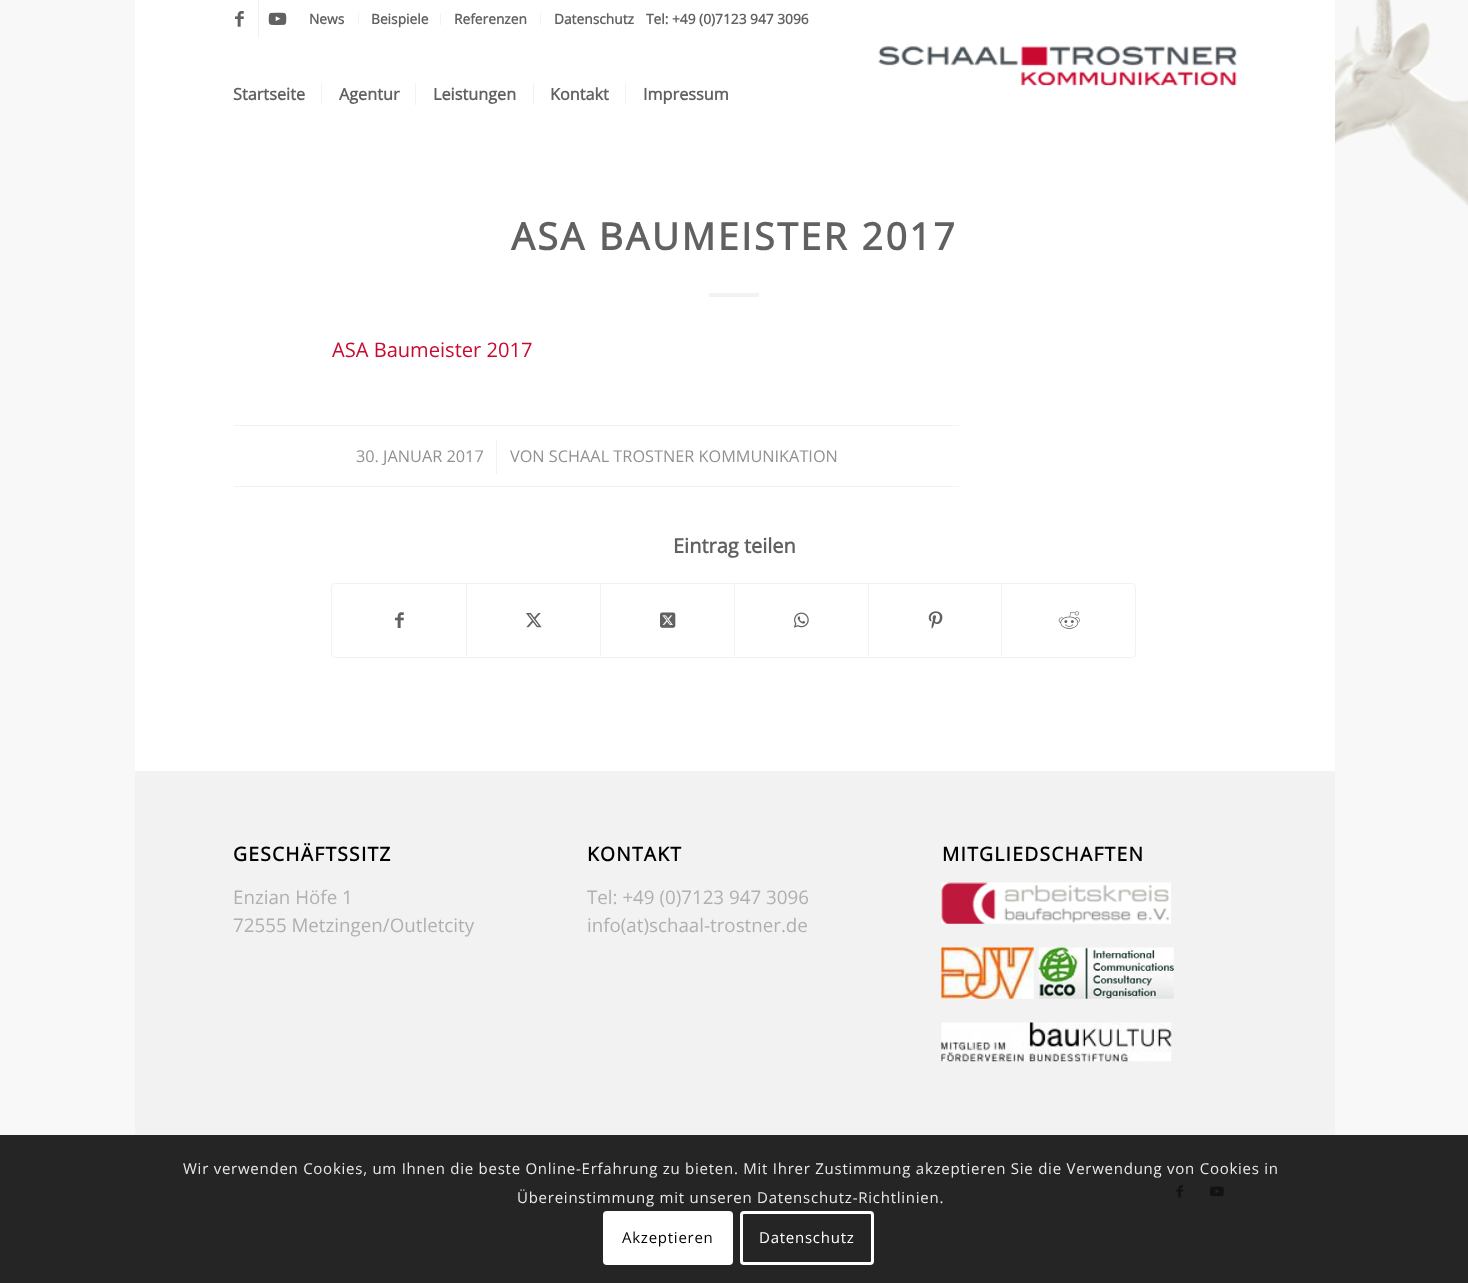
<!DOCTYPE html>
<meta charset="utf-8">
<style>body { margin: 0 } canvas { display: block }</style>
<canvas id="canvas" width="1468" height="1283"></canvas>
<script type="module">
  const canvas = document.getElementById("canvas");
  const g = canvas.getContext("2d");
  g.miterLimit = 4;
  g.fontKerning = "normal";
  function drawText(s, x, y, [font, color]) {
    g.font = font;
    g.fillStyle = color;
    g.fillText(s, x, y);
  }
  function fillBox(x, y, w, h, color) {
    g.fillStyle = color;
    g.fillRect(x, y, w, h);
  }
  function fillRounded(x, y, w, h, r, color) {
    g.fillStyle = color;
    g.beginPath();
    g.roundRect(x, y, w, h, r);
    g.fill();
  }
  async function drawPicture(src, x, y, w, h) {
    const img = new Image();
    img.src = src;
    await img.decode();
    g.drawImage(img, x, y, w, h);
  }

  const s1 = ["bold 13.75px Open Sans", "#616161"];
  const s2 = ["bold 16.25px Open Sans", "#616161"];
  const s3 = ["bold 37.5px Open Sans", "#616161"];
  const s4 = ["20.1px Open Sans", "#C90A30"];
  const s5 = ["16.3px Open Sans", "#919191"];
  const s6 = ["bold 20px Open Sans", "#616161"];
  const s7 = ["bold 19.25px Open Sans", "#000000"];
  const s8 = ["18.75px Open Sans", "#B0B0B0"];
  const s9 = ["15px Open Sans", "#E9E9E9"];
  const s10 = ["15px Open Sans", "#000000"];
  const s11 = ["15px Open Sans", "#FFFFFF"];

  fillBox(0, 0, 1468, 1283, "#F8F8F8");
  fillBox(0, 1135, 1468, 148, "#252525");
  await drawPicture("pic1.png", 1335, 0, 133, 206);
  fillBox(135, 0, 1200, 771, "#FFFFFF");
  fillBox(258, 0, 1, 38, "#F2F2F2");
  await drawPicture("pic2.png", 235, 11, 9, 16);
  await drawPicture("pic3.png", 268, 12, 19, 13);
  fillBox(358, 13, 1, 12, "#F2F2F2");
  drawText("News", 309, 24, s1);
  fillBox(440, 13, 1, 12, "#F2F2F2");
  drawText("Beispiele", 371, 24, s1);
  fillBox(540, 13, 1, 12, "#F2F2F2");
  drawText("Referenzen", 454, 24, s1);
  drawText("Datenschutz", 554, 24, s1);
  drawText("Tel: +49 (0)7123 947 3096", 646, 24, s1);
  await drawPicture("pic4.png", 878, 46, 359, 40);
  drawText("Startseite", 233, 100, s2);
  drawText("Agentur", 339, 100, s2);
  fillBox(321, 83, 1, 22, "#F2F2F2");
  drawText("Leistungen", 433, 100, s2);
  fillBox(415, 83, 1, 22, "#F2F2F2");
  drawText("Kontakt", 550, 100, s2);
  fillBox(533, 83, 1, 22, "#F2F2F2");
  drawText("Impressum", 643, 100, s2);
  fillBox(625, 83, 1, 22, "#F2F2F2");
  g.letterSpacing = "2.5px";
  drawText("ASA BAUMEISTER 2017", 511, 250, s3);
  fillBox(709, 293, 50, 4, "#F2F2F2");
  g.letterSpacing = "0px";
  drawText("ASA Baumeister 2017", 332, 357, s4);
  fillBox(234, 425, 725, 1, "#F2F2F2");
  fillBox(234, 486, 725, 1, "#F2F2F2");
  drawText("30. JANUAR 2017", 356, 462, s5);
  fillBox(496, 440, 1, 34, "#F2F2F2");
  drawText("VON SCHAAL TROSTNER KOMMUNIKATION", 510, 462, s5);
  drawText("Eintrag teilen", 673, 553, s6);
  g.beginPath();
  g.roundRect(331.5, 583.5, 804, 74, 3.5);
  g.strokeStyle = "#F2F2F2";
  g.stroke();
  await drawPicture("pic5.png", 395, 612, 9, 16);
  fillBox(466, 584, 1, 72, "#F2F2F2");
  await drawPicture("pic6.png", 526, 613, 16, 15);
  fillBox(600, 584, 1, 72, "#F2F2F2");
  await drawPicture("pic7.png", 660, 612, 16, 16);
  fillBox(734, 584, 1, 72, "#F2F2F2");
  await drawPicture("pic8.png", 793, 612, 16, 16);
  fillBox(868, 584, 1, 72, "#F2F2F2");
  await drawPicture("pic9.png", 928, 611, 15, 18);
  fillBox(1001, 584, 1, 72, "#F2F2F2");
  await drawPicture("pic10.png", 1058, 611, 22, 18);
  fillBox(135, 771, 1200, 364, "#F2F2F2");
  g.letterSpacing = "1.25px";
  drawText("GESCHÄFTSSITZ", 233, 861, s7);
  g.letterSpacing = "0px";
  drawText("Enzian Höfe 1", 233, 904, s8);
  drawText("72555 Metzingen/Outletcity", 233, 932, s8);
  g.letterSpacing = "1.25px";
  drawText("KONTAKT", 587, 861, s7);
  g.letterSpacing = "0px";
  drawText("Tel: +49 (0)7123 947 3096", 587, 904, s8);
  drawText("info(at)schaal-trostner.de", 587, 932, s8);
  g.letterSpacing = "1.25px";
  drawText("MITGLIEDSCHAFTEN", 942, 861, s7);
  await drawPicture("pic11.png", 941, 882, 230, 42);
  await drawPicture("pic12.png", 941, 947, 93, 52);
  await drawPicture("pic13.png", 1038, 947, 136, 52);
  await drawPicture("pic14.png", 941, 1022, 231, 40);
  await drawPicture("pic15.png", 1176, 1185, 8, 13);
  await drawPicture("pic16.png", 1210, 1186, 14, 11);
  g.letterSpacing = "0.75px";
  drawText("Wir verwenden Cookies, um Ihnen die beste Online-Erfahrung zu bieten. Mit Ihrer Zustimmung akzeptieren Sie die Verwendung von Cookies in", 183, 1174, s9);
  drawText("Übereinstimmung mit unseren Datenschutz-Richtlinien.", 517, 1203, s9);
  fillRounded(603, 1211, 130, 54, 4, "#FFFFFF");
  drawText("Akzeptieren", 622, 1243, s10);
  g.beginPath();
  g.roundRect(741.5, 1212.5, 131, 51, 2.5);
  g.strokeStyle = "#FFFFFF";
  g.lineWidth = 3;
  g.stroke();
  drawText("Datenschutz", 759, 1243, s11);
</script>
